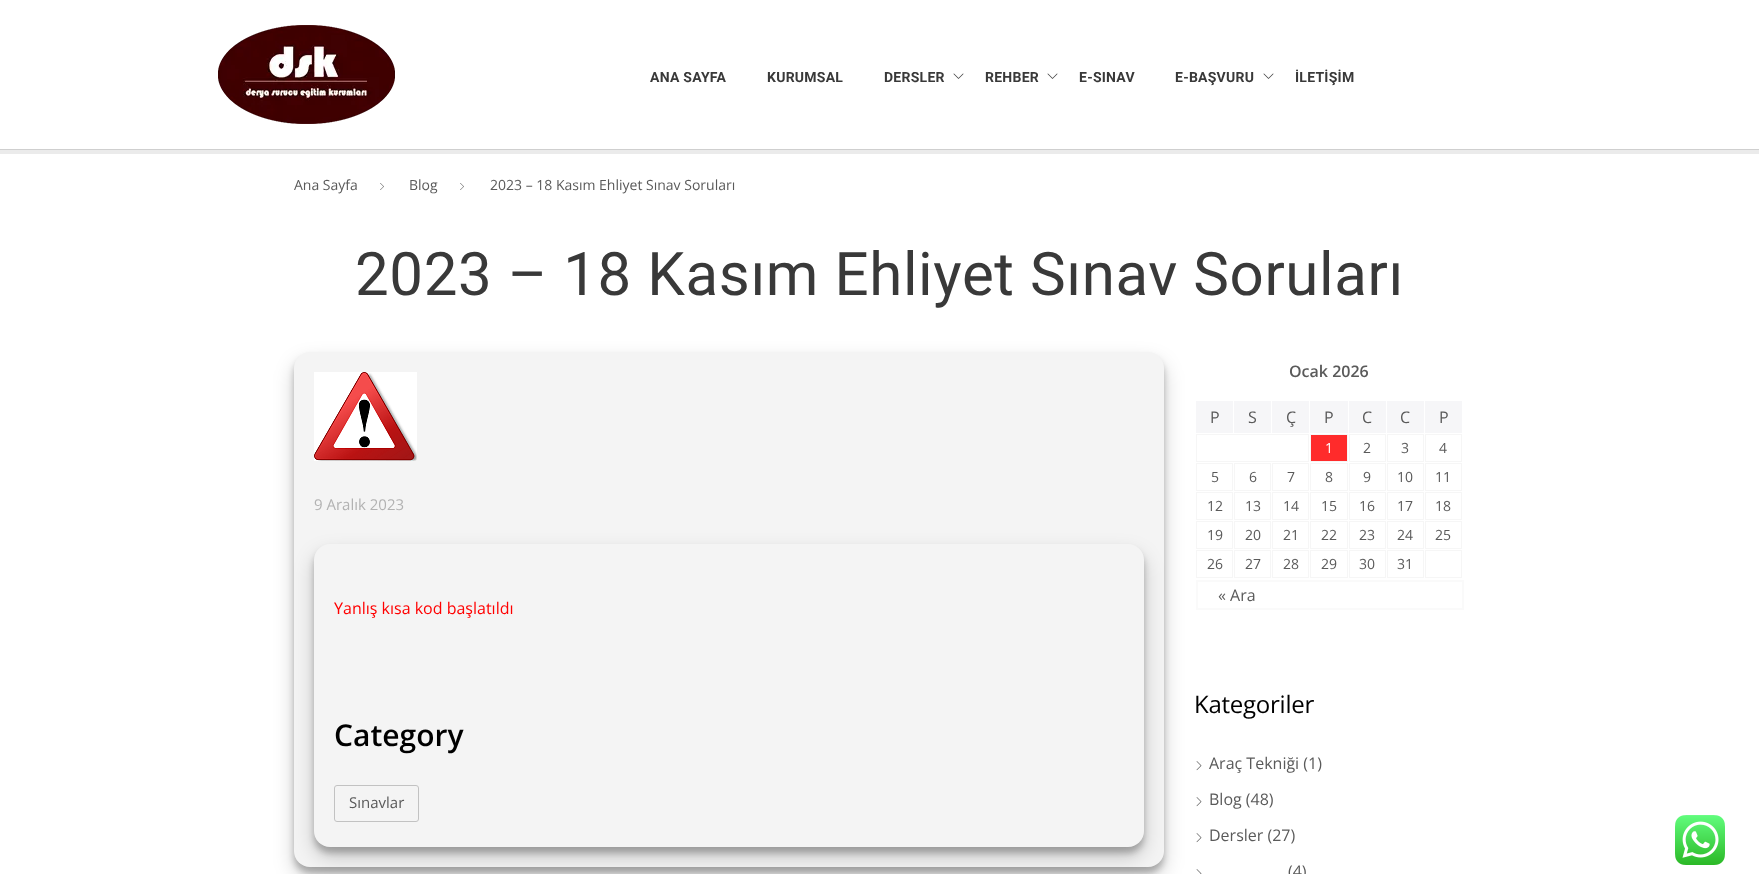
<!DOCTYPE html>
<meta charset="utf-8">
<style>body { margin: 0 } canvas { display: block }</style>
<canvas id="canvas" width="1759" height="874"></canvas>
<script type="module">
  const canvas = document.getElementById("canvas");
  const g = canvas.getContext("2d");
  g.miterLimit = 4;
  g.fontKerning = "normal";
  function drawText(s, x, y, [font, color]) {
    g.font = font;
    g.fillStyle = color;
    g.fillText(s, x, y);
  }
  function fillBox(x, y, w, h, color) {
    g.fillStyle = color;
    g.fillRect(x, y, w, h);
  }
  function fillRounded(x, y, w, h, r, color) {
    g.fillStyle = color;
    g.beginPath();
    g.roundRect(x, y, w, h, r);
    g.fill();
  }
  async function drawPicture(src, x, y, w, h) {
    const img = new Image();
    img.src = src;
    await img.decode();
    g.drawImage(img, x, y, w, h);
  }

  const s1 = ["bold 14px Roboto", "#393939"];
  const s2 = ["14px Open Sans", "#5A5A5A"];
  const s3 = ["60px Roboto", "#393939"];
  const s4 = ["15px Open Sans", "#B2B2B2"];
  const s5 = ["16px Noto Sans", "#FF0000"];
  const s6 = ["16px Open Sans", "#FF0000"];
  const s7 = ["600 30px Open Sans", "#000000"];
  const s8 = ["15px Open Sans", "#5A5A5A"];
  const s9 = ["600 16px Open Sans", "#5A5A5A"];
  const s10 = ["16px Open Sans", "#5A5A5A"];
  const s11 = ["14px Open Sans", "#FFFFFF"];
  const s12 = ["24px Open Sans", "#000000"];

  fillBox(0, 0, 1759, 874, "#FFFFFF");
  await drawPicture("pic1.png", 218, 25, 177, 99);
  g.letterSpacing = "0.25px";
  drawText("ANA SAYFA", 650, 82, s1);
  drawText("KURUMSAL", 767, 82, s1);
  drawText("DERSLER", 884, 82, s1);
  await drawPicture("pic2.png", 953, 73, 11, 6);
  drawText("REHBER", 985, 82, s1);
  await drawPicture("pic2.png", 1047, 73, 11, 6);
  drawText("E-SINAV", 1079, 82, s1);
  drawText("E-BAŞVURU", 1175, 82, s1);
  await drawPicture("pic2.png", 1263, 73, 11, 6);
  drawText("İLETİŞİM", 1295, 82, s1);
  fillBox(0, 149, 1759, 1, "#CFCFCF");
  fillBox(0, 150, 1759, 4, "#EBEBEB");
  g.letterSpacing = "0px";
  drawText("Ana Sayfa", 294, 190, s2);
  await drawPicture("pic3.png", 380, 183, 4, 7);
  drawText("Blog", 409, 190, s2);
  await drawPicture("pic3.png", 460, 183, 4, 7);
  drawText("2023 – 18 Kasım Ehliyet Sınav Soruları", 490, 190, s2);
  g.letterSpacing = "0.6px";
  drawText("2023 – 18 Kasım Ehliyet Sınav Soruları", 355, 295, s3);
  g.fillStyle = "rgba(0, 0, 0, 0.23)";
  g.filter = "blur(3px)";
  g.beginPath();
  g.roundRect(294, 358, 870, 515, 16);
  g.fill();
  g.filter = "none";
  g.fillStyle = "rgba(0, 0, 0, 0.19)";
  g.filter = "blur(10px)";
  g.beginPath();
  g.roundRect(294, 362, 870, 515, 16);
  g.fill();
  g.filter = "none";
  fillRounded(294, 352, 870, 515, 16, "#F4F4F4");
  await drawPicture("pic4.png", 314, 372, 103, 89);
  g.letterSpacing = "0px";
  drawText("9 Aralık 2023", 314, 510, s4);
  g.fillStyle = "rgba(0, 0, 0, 0.23)";
  g.filter = "blur(3px)";
  g.beginPath();
  g.roundRect(314, 550, 830, 303, 16);
  g.fill();
  g.filter = "none";
  g.fillStyle = "rgba(0, 0, 0, 0.19)";
  g.filter = "blur(10px)";
  g.beginPath();
  g.roundRect(314, 554, 830, 303, 16);
  g.fill();
  g.filter = "none";
  fillRounded(314, 544, 830, 303, 16, "#F4F4F4");
  drawText("Y", 334, 614, s5);
  drawText("anlış kısa kod başlatıldı", 343, 614, s6);
  drawText("Category", 334, 746, s7);
  g.beginPath();
  g.roundRect(334.5, 785.5, 84, 36, 2.5);
  g.strokeStyle = "#C2C2C2";
  g.stroke();
  drawText("Sınavlar", 349, 808, s8);
  drawText("Ocak 2026", 1289, 377, s9);
  fillBox(1197, 402, 35, 30, "#F6F6F8");
  g.strokeStyle = "#F6F6F8";
  g.strokeRect(1196.5, 401.5, 36, 31);
  drawText("P", 1210, 423, s10);
  fillBox(1235, 402, 35, 30, "#F6F6F8");
  g.strokeRect(1234.5, 401.5, 36, 31);
  drawText("S", 1248, 423, s10);
  fillBox(1273, 402, 35, 30, "#F6F6F8");
  g.strokeRect(1272.5, 401.5, 36, 31);
  drawText("Ç", 1286, 423, s10);
  fillBox(1311, 402, 36, 30, "#F6F6F8");
  g.strokeRect(1310.5, 401.5, 37, 31);
  drawText("P", 1324, 423, s10);
  fillBox(1350, 402, 35, 30, "#F6F6F8");
  g.strokeRect(1349.5, 401.5, 36, 31);
  drawText("C", 1362, 423, s10);
  fillBox(1388, 402, 35, 30, "#F6F6F8");
  g.strokeRect(1387.5, 401.5, 36, 31);
  drawText("C", 1400, 423, s10);
  fillBox(1426, 402, 35, 30, "#F6F6F8");
  g.strokeRect(1425.5, 401.5, 36, 31);
  drawText("P", 1439, 423, s10);
  g.strokeStyle = "#F6F6F6";
  g.strokeRect(1196.5, 434.5, 112, 27);
  fillBox(1311, 435, 36, 26, "#FF2B2B");
  g.strokeRect(1310.5, 434.5, 37, 27);
  drawText("1", 1325, 453, s11);
  g.strokeRect(1349.5, 434.5, 36, 27);
  drawText("2", 1363, 453, s2);
  g.strokeRect(1387.5, 434.5, 36, 27);
  drawText("3", 1401, 453, s2);
  g.strokeRect(1425.5, 434.5, 36, 27);
  drawText("4", 1439, 453, s2);
  g.strokeRect(1196.5, 463.5, 36, 27);
  drawText("5", 1211, 482, s2);
  g.strokeRect(1234.5, 463.5, 36, 27);
  drawText("6", 1249, 482, s2);
  g.strokeRect(1272.5, 463.5, 36, 27);
  drawText("7", 1287, 482, s2);
  g.strokeRect(1310.5, 463.5, 37, 27);
  drawText("8", 1325, 482, s2);
  g.strokeRect(1349.5, 463.5, 36, 27);
  drawText("9", 1363, 482, s2);
  g.strokeRect(1387.5, 463.5, 36, 27);
  drawText("10", 1397, 482, s2);
  g.strokeRect(1425.5, 463.5, 36, 27);
  drawText("11", 1435, 482, s2);
  g.strokeRect(1196.5, 492.5, 36, 27);
  drawText("12", 1207, 511, s2);
  g.strokeRect(1234.5, 492.5, 36, 27);
  drawText("13", 1245, 511, s2);
  g.strokeRect(1272.5, 492.5, 36, 27);
  drawText("14", 1283, 511, s2);
  g.strokeRect(1310.5, 492.5, 37, 27);
  drawText("15", 1321, 511, s2);
  g.strokeRect(1349.5, 492.5, 36, 27);
  drawText("16", 1359, 511, s2);
  g.strokeRect(1387.5, 492.5, 36, 27);
  drawText("17", 1397, 511, s2);
  g.strokeRect(1425.5, 492.5, 36, 27);
  drawText("18", 1435, 511, s2);
  g.strokeRect(1196.5, 521.5, 36, 27);
  drawText("19", 1207, 540, s2);
  g.strokeRect(1234.5, 521.5, 36, 27);
  drawText("20", 1245, 540, s2);
  g.strokeRect(1272.5, 521.5, 36, 27);
  drawText("21", 1283, 540, s2);
  g.strokeRect(1310.5, 521.5, 37, 27);
  drawText("22", 1321, 540, s2);
  g.strokeRect(1349.5, 521.5, 36, 27);
  drawText("23", 1359, 540, s2);
  g.strokeRect(1387.5, 521.5, 36, 27);
  drawText("24", 1397, 540, s2);
  g.strokeRect(1425.5, 521.5, 36, 27);
  drawText("25", 1435, 540, s2);
  g.strokeRect(1196.5, 550.5, 36, 27);
  drawText("26", 1207, 569, s2);
  g.strokeRect(1234.5, 550.5, 36, 27);
  drawText("27", 1245, 569, s2);
  g.strokeRect(1272.5, 550.5, 36, 27);
  drawText("28", 1283, 569, s2);
  g.strokeRect(1310.5, 550.5, 37, 27);
  drawText("29", 1321, 569, s2);
  g.strokeRect(1349.5, 550.5, 36, 27);
  drawText("30", 1359, 569, s2);
  g.strokeRect(1387.5, 550.5, 36, 27);
  drawText("31", 1397, 569, s2);
  g.strokeRect(1425.5, 550.5, 36, 27);
  g.strokeStyle = "#FAFAFA";
  g.lineWidth = 2;
  g.strokeRect(1197, 581, 266, 28);
  drawText("« Ara", 1218, 601, s10);
  g.letterSpacing = "-0.25px";
  drawText("Kategoriler", 1194, 713, s12);
  await drawPicture("pic5.png", 1196, 761, 6, 10);
  g.letterSpacing = "0px";
  drawText("Araç Tekniği (1)", 1209, 769, s10);
  await drawPicture("pic5.png", 1196, 797, 6, 10);
  drawText("Blog (48)", 1209, 805, s10);
  await drawPicture("pic5.png", 1196, 833, 6, 10);
  drawText("Dersler (27)", 1209, 841, s10);
  await drawPicture("pic6.png", 1196, 869, 6, 5);
  drawText("(4)", 1288, 877, s10);
  await drawPicture("pic7.png", 1675, 815, 50, 50);
</script>
